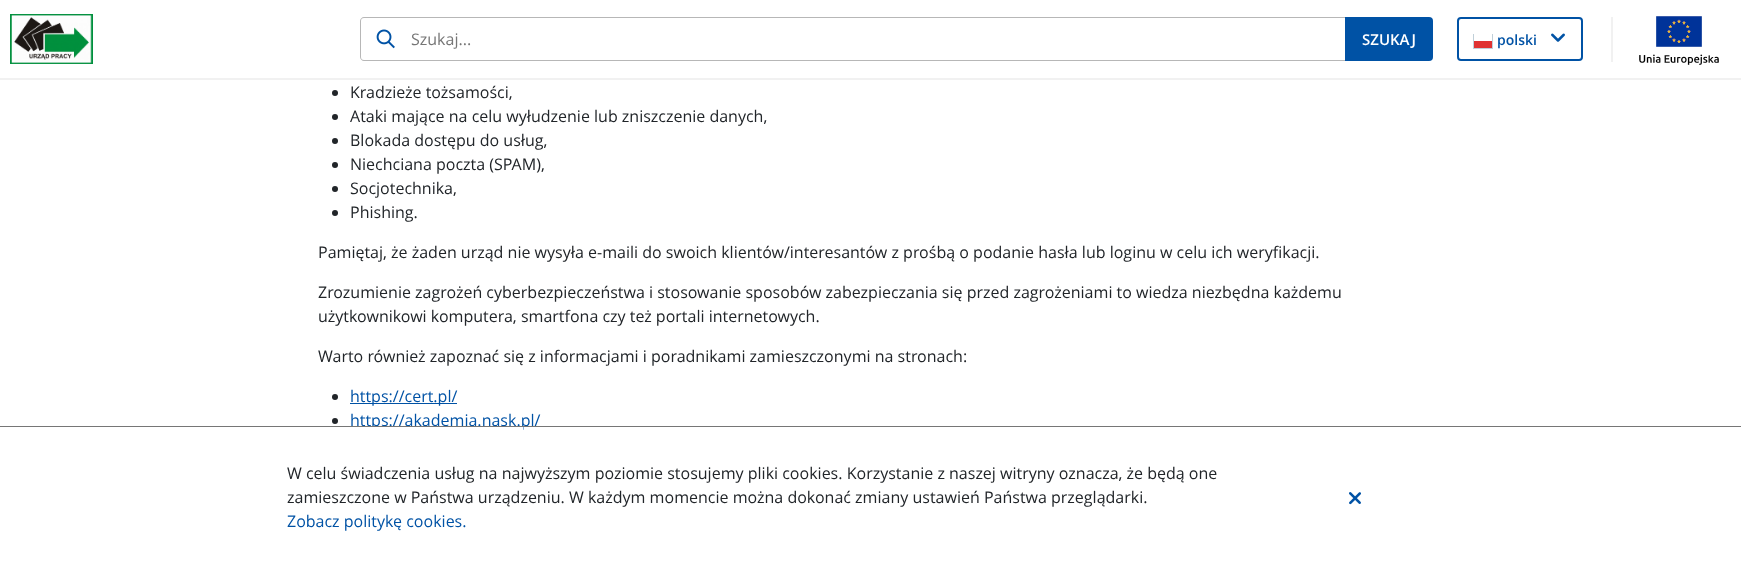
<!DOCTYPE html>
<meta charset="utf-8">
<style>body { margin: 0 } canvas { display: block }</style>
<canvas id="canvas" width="1741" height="581"></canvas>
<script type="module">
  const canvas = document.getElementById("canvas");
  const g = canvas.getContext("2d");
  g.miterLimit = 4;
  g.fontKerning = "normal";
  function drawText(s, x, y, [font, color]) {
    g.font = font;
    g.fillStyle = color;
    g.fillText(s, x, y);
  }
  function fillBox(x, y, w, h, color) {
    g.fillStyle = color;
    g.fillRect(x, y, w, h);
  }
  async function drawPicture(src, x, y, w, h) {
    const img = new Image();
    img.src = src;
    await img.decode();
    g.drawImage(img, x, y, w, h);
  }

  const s1 = ["16px Open Sans", "#767676"];
  const s2 = ["600 15px Open Sans", "#FFFFFF"];
  const s3 = ["600 14px Open Sans", "#0052A5"];
  const s4 = ["16px Open Sans", "#212529"];
  const s5 = ["16px Open Sans", "#0052A5"];

  fillBox(0, 0, 1741, 581, "#FFFFFF");
  fillBox(0, 78, 1741, 2, "#F1F1F1");
  await drawPicture("pic1.png", 10, 14, 83, 50);
  await drawPicture("pic2.png", 376, 29, 19, 20);
  g.fillStyle = "#B7B7B7";
  g.beginPath();
  g.moveTo(364, 17);
  g.lineTo(1345, 17);
  g.lineTo(1345, 61);
  g.lineTo(364, 61);
  g.bezierCurveTo(362, 61, 360, 59, 360, 57);
  g.lineTo(360, 21);
  g.bezierCurveTo(360, 19, 362, 17, 364, 17);
  g.closePath();
  g.moveTo(364, 18);
  g.lineTo(1345, 18);
  g.lineTo(1345, 60);
  g.lineTo(364, 60);
  g.bezierCurveTo(362, 60, 361, 59, 361, 57);
  g.lineTo(361, 21);
  g.bezierCurveTo(361, 19, 362, 18, 364, 18);
  g.closePath();
  g.fill("evenodd");
  drawText("Szukaj...", 411, 45, s1);
  g.fillStyle = "#0052A5";
  g.beginPath();
  g.roundRect(1345, 17, 88, 44, [0, 4, 4, 0]);
  g.fill();
  drawText("SZUKAJ", 1362, 45, s2);
  g.beginPath();
  g.roundRect(1458, 18, 124, 42, 3);
  g.strokeStyle = "#0052A5";
  g.lineWidth = 2;
  g.stroke();
  drawText("polski", 1497, 45, s3);
  fillBox(1473, 34, 20, 15, "#C0CFD8");
  fillBox(1474, 34, 18, 7, "#FFFFFF");
  fillBox(1474, 41, 18, 7, "#E03232");
  await drawPicture("pic3.png", 1551, 33, 14, 9);
  fillBox(1611, 17, 2, 45, "#F1F1F1");
  await drawPicture("pic4.png", 1639, 16, 80, 49);
  g.fillStyle = "#212529";
  g.beginPath();
  g.arc(335, 93, 3, 0, Math.PI * 2);
  g.fill();
  drawText("Kradzieże tożsamości,", 350, 98, s4);
  g.beginPath();
  g.arc(335, 117, 3, 0, Math.PI * 2);
  g.fill();
  drawText("Ataki mające na celu wyłudzenie lub zniszczenie danych,", 350, 122, s4);
  g.beginPath();
  g.arc(335, 141, 3, 0, Math.PI * 2);
  g.fill();
  drawText("Blokada dostępu do usług,", 350, 146, s4);
  g.beginPath();
  g.arc(335, 165, 3, 0, Math.PI * 2);
  g.fill();
  drawText("Niechciana poczta (SPAM),", 350, 170, s4);
  g.beginPath();
  g.arc(335, 189, 3, 0, Math.PI * 2);
  g.fill();
  drawText("Socjotechnika,", 350, 194, s4);
  g.beginPath();
  g.arc(335, 213, 3, 0, Math.PI * 2);
  g.fill();
  drawText("Phishing.", 350, 218, s4);
  drawText("Pamiętaj, że żaden urząd nie wysyła e-maili do swoich klientów/interesantów z prośbą o podanie hasła lub loginu w celu ich weryfikacji.", 318, 258, s4);
  drawText("Zrozumienie zagrożeń cyberbezpieczeństwa i stosowanie sposobów zabezpieczania się przed zagrożeniami to wiedza niezbędna każdemu", 318, 298, s4);
  drawText("użytkownikowi komputera, smartfona czy też portali internetowych.", 318, 322, s4);
  drawText("Warto również zapoznać się z informacjami i poradnikami zamieszczonymi na stronach:", 318, 362, s4);
  g.beginPath();
  g.arc(335, 397, 3, 0, Math.PI * 2);
  g.fill();
  fillBox(350, 403, 107, 1, "#0052A5");
  drawText("https://cert.pl/", 350, 402, s5);
  g.fillStyle = "#212529";
  g.beginPath();
  g.arc(335, 421, 3, 0, Math.PI * 2);
  g.fill();
  drawText("https://akademia.nask.pl/", 350, 426, s5);
  fillBox(372, 427, 151, 3, "#FFFFFF");
  fillBox(0, 426, 1741, 1, "#767676");
  drawText("W celu świadczenia usług na najwyższym poziomie stosujemy pliki cookies. Korzystanie z naszej witryny oznacza, że będą one", 287, 479, s4);
  drawText("zamieszczone w Państwa urządzeniu. W każdym momencie można dokonać zmiany ustawień Państwa przeglądarki.", 287, 503, s4);
  drawText("Zobacz politykę cookies.", 287, 527, s5);
  await drawPicture("pic5.png", 1349, 492, 12, 13);
</script>
